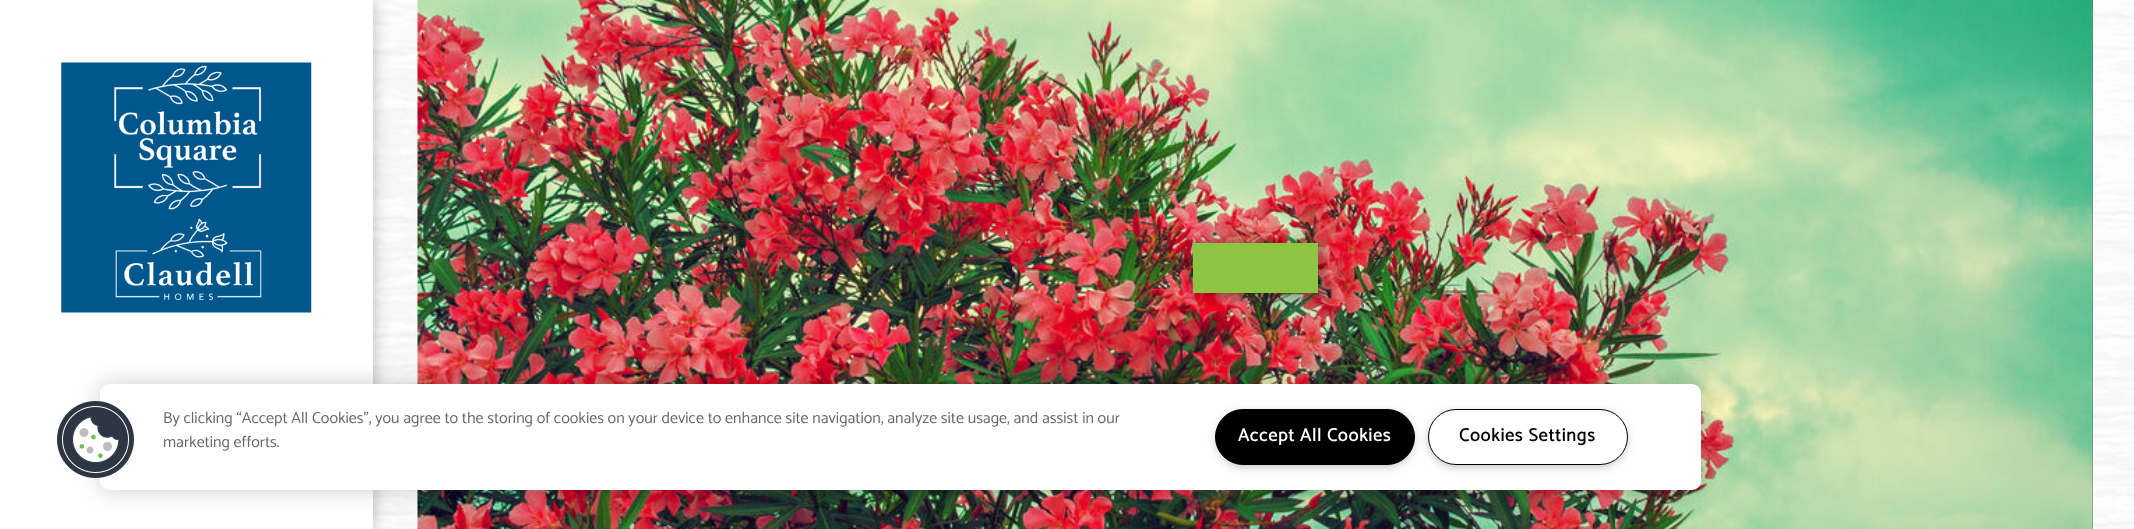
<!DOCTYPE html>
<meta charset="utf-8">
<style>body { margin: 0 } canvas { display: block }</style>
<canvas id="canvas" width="2134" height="529"></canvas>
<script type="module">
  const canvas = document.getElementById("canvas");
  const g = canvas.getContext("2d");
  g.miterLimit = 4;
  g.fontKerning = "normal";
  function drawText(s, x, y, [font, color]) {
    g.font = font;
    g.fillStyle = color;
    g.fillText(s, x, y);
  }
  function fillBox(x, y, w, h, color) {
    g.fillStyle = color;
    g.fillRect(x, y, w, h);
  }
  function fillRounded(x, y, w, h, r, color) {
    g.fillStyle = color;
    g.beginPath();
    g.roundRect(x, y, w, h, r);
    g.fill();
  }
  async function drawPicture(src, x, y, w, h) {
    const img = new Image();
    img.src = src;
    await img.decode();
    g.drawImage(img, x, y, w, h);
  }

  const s1 = ["16px Catamaran", "#696969"];
  const s2 = ["bold 18px Catamaran", "#FFFFFF"];
  const s3 = ["bold 18px Catamaran", "#000000"];

  fillBox(0, 0, 2134, 529, "#FFFFFF");
  await drawPicture("pic1.png", 373, 0, 1761, 529);
  g.fillStyle = "rgba(0, 0, 0, 0.21)";
  g.filter = "blur(7.5px)";
  g.beginPath();
  g.rect(3, 3, 372, 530);
  g.fill();
  g.filter = "none";
  fillBox(0, 0, 373, 529, "#FFFFFF");
  await drawPicture("pic2.png", 61, 62, 251, 251);
  fillBox(2092, 0, 1, 529, "#777777");
  await drawPicture("pic3.png", 417, 0, 1676, 529);
  g.fillStyle = "rgba(0, 0, 0, 0.5)";
  g.filter = "blur(7.5px)";
  g.beginPath();
  g.rect(1195, 245, 125, 50);
  g.fill();
  g.filter = "none";
  fillBox(1193, 243, 125, 50, "#8DC441");
  g.fillStyle = "rgba(0, 0, 0, 0.2)";
  g.filter = "blur(11px)";
  g.beginPath();
  g.roundRect(100, 384, 1601, 106, 9);
  g.fill();
  g.filter = "none";
  fillRounded(100, 384, 1601, 106, 9, "#FFFFFF");
  await drawPicture("pic4.png", 57, 401, 77, 77);
  drawText("By clicking “Accept All Cookies”, you agree to the storing of cookies on your device to enhance site navigation, analyze site usage, and assist in our", 163, 423, s1);
  drawText("marketing efforts.", 163, 447, s1);
  g.fillStyle = "#999999";
  g.filter = "blur(6px)";
  g.beginPath();
  g.roundRect(1219, 415, 192, 49, 24.5);
  g.fill();
  g.filter = "none";
  g.fillStyle = "#000000";
  g.beginPath();
  g.roundRect(1215.5, 409.5, 199, 55, 27.5);
  g.fill();
  g.strokeStyle = "#000000";
  g.stroke();
  g.letterSpacing = "0.9px";
  drawText("Accept All Cookies", 1238, 441, s2);
  g.fillStyle = "#999999";
  g.filter = "blur(6px)";
  g.beginPath();
  g.roundRect(1431, 415, 193, 49, 24.5);
  g.fill();
  g.filter = "none";
  g.fillStyle = "#FFFFFF";
  g.beginPath();
  g.roundRect(1428.5, 409.5, 199, 55, 27.5);
  g.fill();
  g.stroke();
  drawText("Cookies Settings", 1459, 441, s3);
</script>
